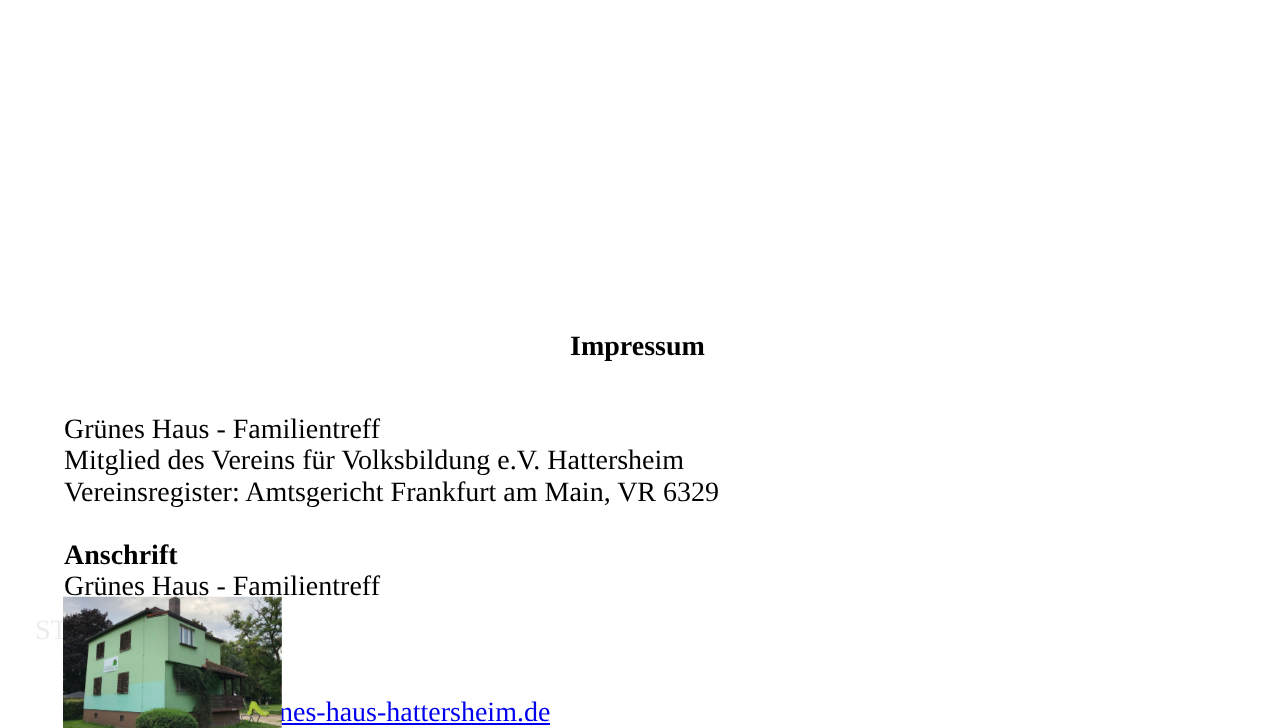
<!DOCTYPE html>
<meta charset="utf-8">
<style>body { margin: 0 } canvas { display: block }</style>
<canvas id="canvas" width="1275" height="728"></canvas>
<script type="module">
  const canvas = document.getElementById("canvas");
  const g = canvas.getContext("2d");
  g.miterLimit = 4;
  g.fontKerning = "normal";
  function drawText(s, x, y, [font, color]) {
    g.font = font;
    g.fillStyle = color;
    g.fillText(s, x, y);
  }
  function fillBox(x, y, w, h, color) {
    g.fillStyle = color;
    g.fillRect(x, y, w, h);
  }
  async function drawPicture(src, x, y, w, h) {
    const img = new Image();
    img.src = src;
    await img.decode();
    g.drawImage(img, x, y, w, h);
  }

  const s1 = ["28px Liberation Serif", "#ECECEC"];
  const s2 = ["28px Liberation Serif", "#0000EE"];
  const s3 = ["bold 28px Liberation Serif", "#000000"];
  const s4 = ["28px Liberation Serif", "#000000"];

  fillBox(0, 0, 1275, 728, "#FFFFFF");
  drawText("ST", 35, 639, s1);
  drawText("nes-haus-hattersheim.de", 279, 721, s2);
  fillBox(281, 723, 269, 2, "#0000EE");
  await drawPicture("pic1.png", 63, 596, 219, 132);
  drawText("Impressum", 570, 355, s3);
  drawText("Grünes Haus - Familientreff", 64, 438, s4);
  drawText("Mitglied des Vereins für Volksbildung e.V. Hattersheim", 64, 469, s4);
  drawText("Vereinsregister: Amtsgericht Frankfurt am Main, VR 6329", 64, 501, s4);
  drawText("Anschrift", 64, 564, s3);
  drawText("Grünes Haus - Familientreff", 64, 595, s4);
</script>
